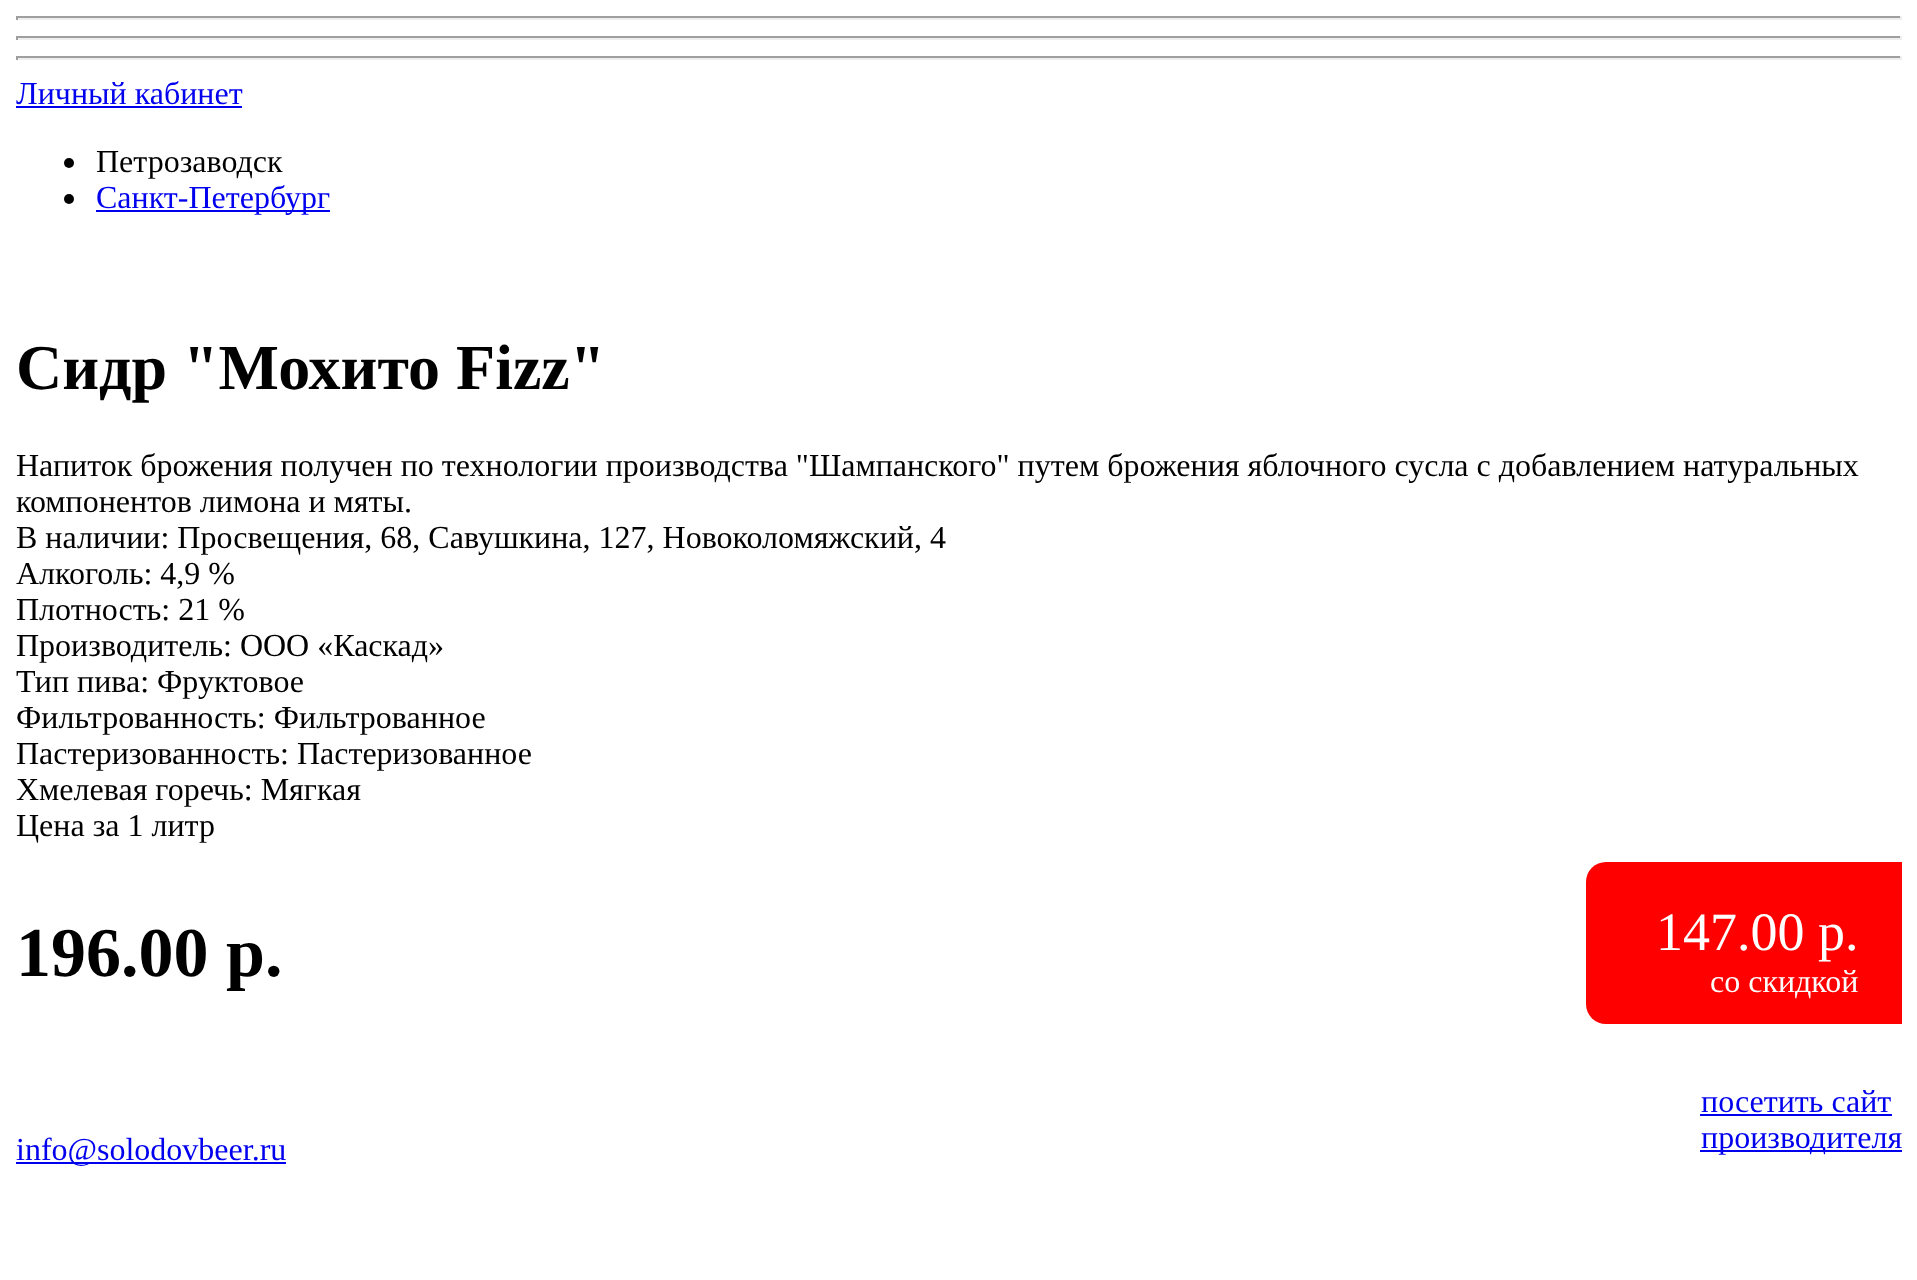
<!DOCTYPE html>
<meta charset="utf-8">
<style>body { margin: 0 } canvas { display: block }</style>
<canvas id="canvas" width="1917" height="1280"></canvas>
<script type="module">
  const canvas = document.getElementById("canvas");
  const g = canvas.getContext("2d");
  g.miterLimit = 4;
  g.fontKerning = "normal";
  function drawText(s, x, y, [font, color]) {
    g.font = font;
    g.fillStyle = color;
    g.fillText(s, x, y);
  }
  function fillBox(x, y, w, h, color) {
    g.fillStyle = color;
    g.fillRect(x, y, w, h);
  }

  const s1 = ["32px Liberation Serif", "#0000EE"];
  const s2 = ["32px Liberation Serif", "#000000"];
  const s3 = ["bold 64px Liberation Serif", "#000000"];
  const s4 = ["bold 70px Liberation Serif", "#000000"];
  const s5 = ["54px Liberation Serif", "#FFFFFF"];
  const s6 = ["32px Liberation Serif", "#FFFFFF"];

  fillBox(0, 0, 1917, 1280, "#FFFFFF");
  fillBox(16, 16, 1886, 2, "#9F9F9F");
  fillBox(1900, 16, 2, 4, "#EEEEEE");
  fillBox(16, 18, 1886, 2, "#EEEEEE");
  fillBox(16, 16, 2, 4, "#9F9F9F");
  fillBox(16, 36, 1886, 2, "#9F9F9F");
  fillBox(1900, 36, 2, 4, "#EEEEEE");
  fillBox(16, 38, 1886, 2, "#EEEEEE");
  fillBox(16, 36, 2, 4, "#9F9F9F");
  fillBox(16, 56, 1886, 2, "#9F9F9F");
  fillBox(1900, 56, 2, 4, "#EEEEEE");
  fillBox(16, 58, 1886, 2, "#EEEEEE");
  fillBox(16, 56, 2, 4, "#9F9F9F");
  drawText("Личный кабинет", 16, 104, s1);
  fillBox(16, 106, 226, 2, "#0000EE");
  g.fillStyle = "#000000";
  g.beginPath();
  g.arc(69, 163, 5, 0, Math.PI * 2);
  g.fill();
  drawText("Петрозаводск", 96, 172, s2);
  g.beginPath();
  g.arc(69, 199, 5, 0, Math.PI * 2);
  g.fill();
  fillBox(96, 210, 234, 2, "#0000EE");
  drawText("Санкт-Петербург", 96, 208, s1);
  drawText("Сидр \"Мохито Fizz\"", 16, 389, s3);
  drawText("Напиток брожения получен по технологии производства \"Шампанского\" путем брожения яблочного сусла с добавлением натуральных", 16, 476, s2);
  drawText("компонентов лимона и мяты.", 16, 512, s2);
  drawText("В наличии: Просвещения, 68, Савушкина, 127, Новоколомяжский, 4", 16, 548, s2);
  drawText("Алкоголь: 4,9 %", 16, 584, s2);
  drawText("Плотность: 21 %", 16, 620, s2);
  drawText("Производитель: ООО «Каскад»", 16, 656, s2);
  drawText("Тип пива: Фруктовое", 16, 692, s2);
  drawText("Фильтрованность: Фильтрованное", 16, 728, s2);
  drawText("Пастеризованность: Пастеризованное", 16, 764, s2);
  drawText("Хмелевая горечь: Мягкая", 16, 800, s2);
  drawText("Цена за 1 литр", 16, 836, s2);
  drawText("196.00 р.", 16, 976, s4);
  g.fillStyle = "#FF0000";
  g.beginPath();
  g.roundRect(1586, 862, 316, 162, [20, 0, 0, 20]);
  g.fill();
  drawText("147.00 р.", 1656, 950, s5);
  drawText("со скидкой", 1710, 992, s6);
  drawText("посетить сайт", 1701, 1112, s1);
  fillBox(1700, 1114, 192, 2, "#0000EE");
  fillBox(1700, 1150, 202, 2, "#0000EE");
  drawText("производителя", 1701, 1148, s1);
  fillBox(16, 1162, 270, 2, "#0000EE");
  drawText("info@solodovbeer.ru", 16, 1160, s1);
</script>
